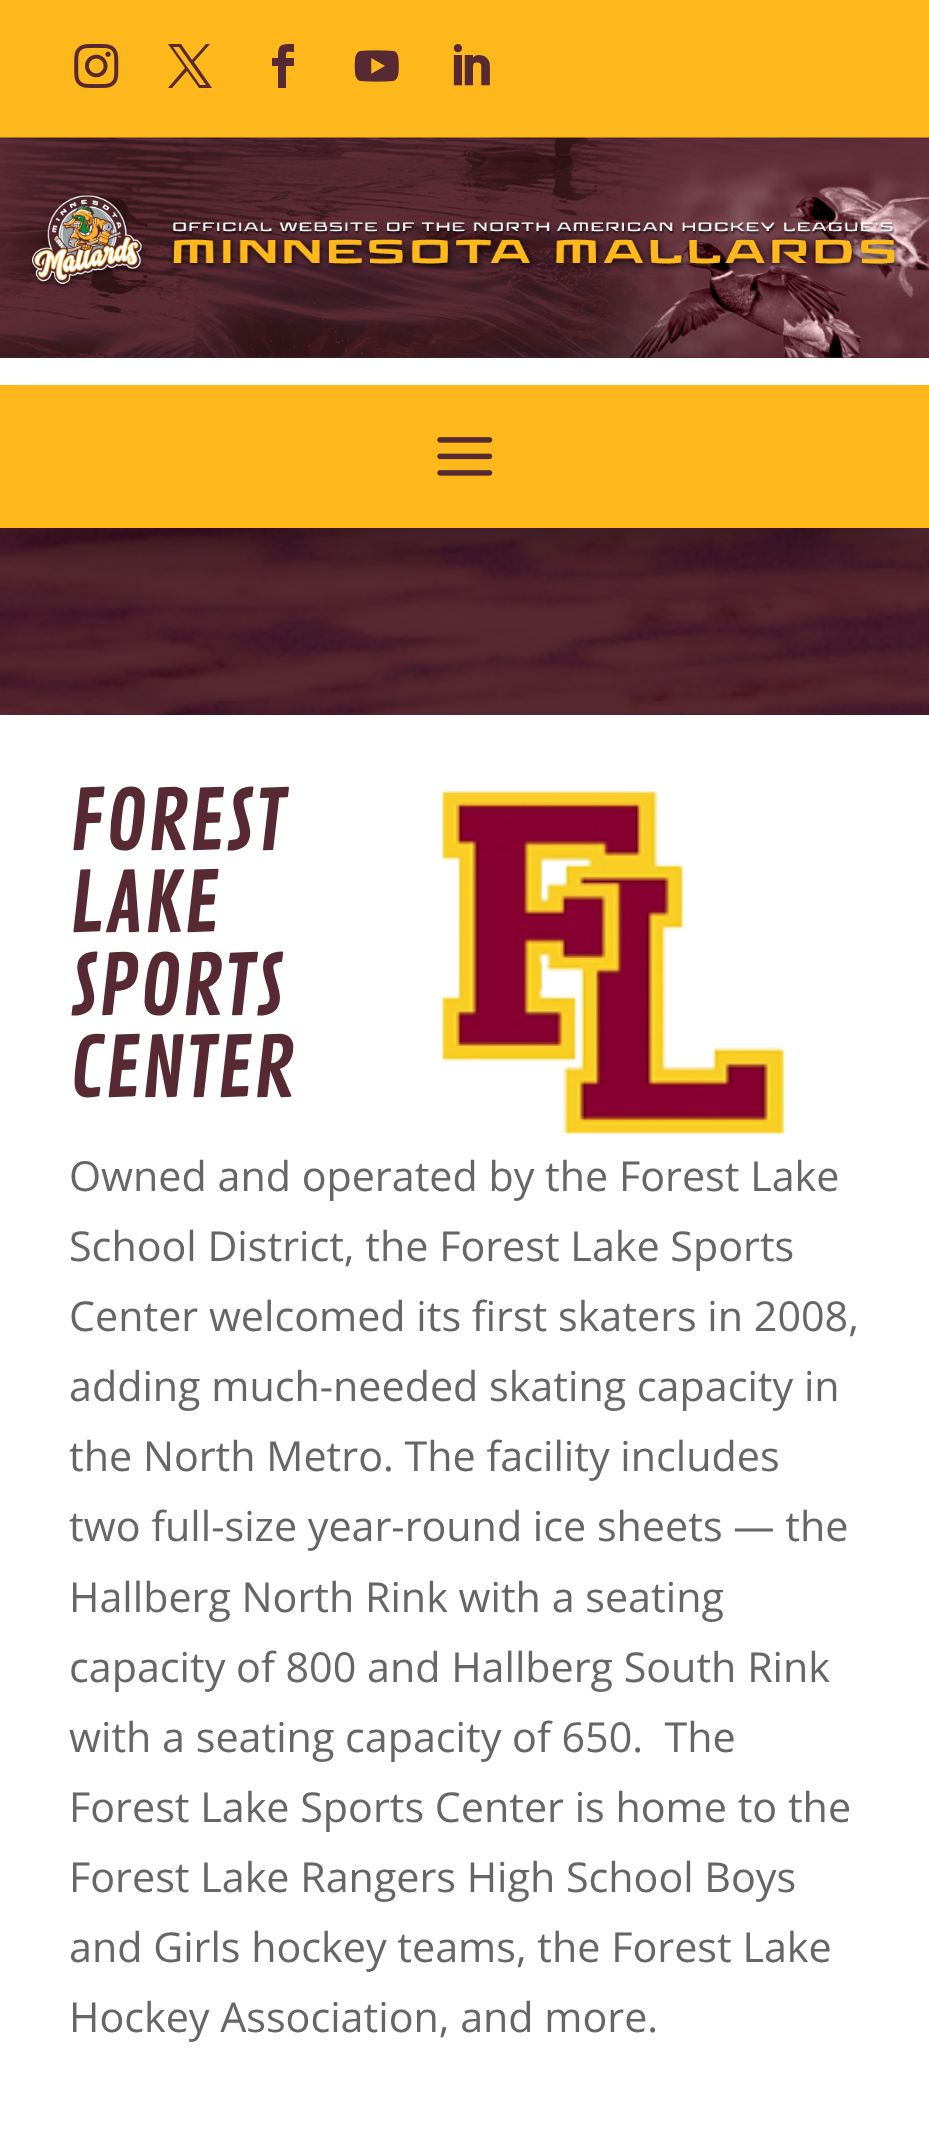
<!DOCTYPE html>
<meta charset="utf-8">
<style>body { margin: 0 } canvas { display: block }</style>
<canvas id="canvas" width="929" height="2131"></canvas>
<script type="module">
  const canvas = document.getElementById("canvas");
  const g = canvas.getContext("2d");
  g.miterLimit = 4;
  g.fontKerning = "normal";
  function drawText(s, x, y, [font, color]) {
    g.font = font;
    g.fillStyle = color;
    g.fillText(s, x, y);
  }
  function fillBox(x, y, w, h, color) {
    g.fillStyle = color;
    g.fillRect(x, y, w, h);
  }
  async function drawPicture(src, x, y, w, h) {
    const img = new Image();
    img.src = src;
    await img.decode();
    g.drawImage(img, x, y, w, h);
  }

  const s1 = ["82.5px Contrail One", "#572932"];
  const s2 = ["41.25px Open Sans", "#666666"];

  fillBox(0, 0, 929, 2131, "#FFFFFF");
  await drawPicture("pic1.png", 0, 357, 929, 358);
  fillBox(0, 0, 929, 138, "#FFB81C");
  await drawPicture("pic2.png", 74, 44, 45, 44);
  g.fillStyle = "#572932";
  g.beginPath();
  g.moveTo(168, 44);
  g.lineTo(185, 68);
  g.lineTo(168, 88);
  g.lineTo(172, 88);
  g.lineTo(187, 71);
  g.lineTo(199, 88);
  g.lineTo(212, 88);
  g.lineTo(194, 62);
  g.lineTo(210, 44);
  g.lineTo(206, 44);
  g.lineTo(192, 60);
  g.lineTo(181, 44);
  g.closePath();
  g.moveTo(173, 47);
  g.lineTo(179, 47);
  g.lineTo(206, 85);
  g.lineTo(200, 85);
  g.closePath();
  g.fill();
  g.beginPath();
  g.moveTo(278, 88);
  g.lineTo(286, 88);
  g.lineTo(286, 66);
  g.lineTo(294, 66);
  g.lineTo(294, 58);
  g.lineTo(286, 58);
  g.bezierCurveTo(286, 50, 286, 52, 294, 52);
  g.lineTo(294, 44);
  g.bezierCurveTo(280, 44, 278, 44, 278, 58);
  g.lineTo(272, 58);
  g.lineTo(272, 66);
  g.lineTo(278, 66);
  g.closePath();
  g.fill();
  await drawPicture("pic3.png", 354, 50, 45, 32);
  await drawPicture("pic4.png", 453, 44, 37, 42);
  await drawPicture("pic5.png", 0, 137, 929, 221);
  fillBox(0, 358, 929, 27, "#FFFFFF");
  await drawPicture("pic6.png", 30, 194, 871, 95);
  g.fillStyle = "rgba(0, 0, 0, 0.3)";
  g.filter = "blur(25px)";
  g.beginPath();
  g.rect(17, 435, 896, 110);
  g.fill();
  g.filter = "none";
  fillBox(0, 385, 929, 143, "#FFB81C");
  await drawPicture("pic7.png", 437, 437, 56, 39);
  drawText("FOREST", 69, 850, s1);
  await drawPicture("pic8.png", 442, 791, 343, 343);
  drawText("LAKE", 69, 932, s1);
  drawText("SPORTS", 69, 1015, s1);
  drawText("CENTER", 69, 1097, s1);
  drawText("Owned and operated by the Forest Lake", 69, 1191, s2);
  drawText("School District, the Forest Lake Sports", 69, 1261, s2);
  drawText("Center welcomed its first skaters in 2008,", 69, 1331, s2);
  drawText("adding much-needed skating capacity in", 69, 1401, s2);
  drawText("the North Metro. The facility includes", 69, 1471, s2);
  drawText("two full-size year-round ice sheets — the", 69, 1541, s2);
  drawText("Hallberg North Rink with a seating", 69, 1612, s2);
  drawText("capacity of 800 and Hallberg South Rink", 69, 1682, s2);
  drawText("with a seating capacity of 650.  The", 69, 1752, s2);
  drawText("Forest Lake Sports Center is home to the", 69, 1822, s2);
  drawText("Forest Lake Rangers High School Boys", 69, 1892, s2);
  drawText("and Girls hockey teams, the Forest Lake", 69, 1962, s2);
  drawText("Hockey Association, and more.", 69, 2032, s2);
</script>
